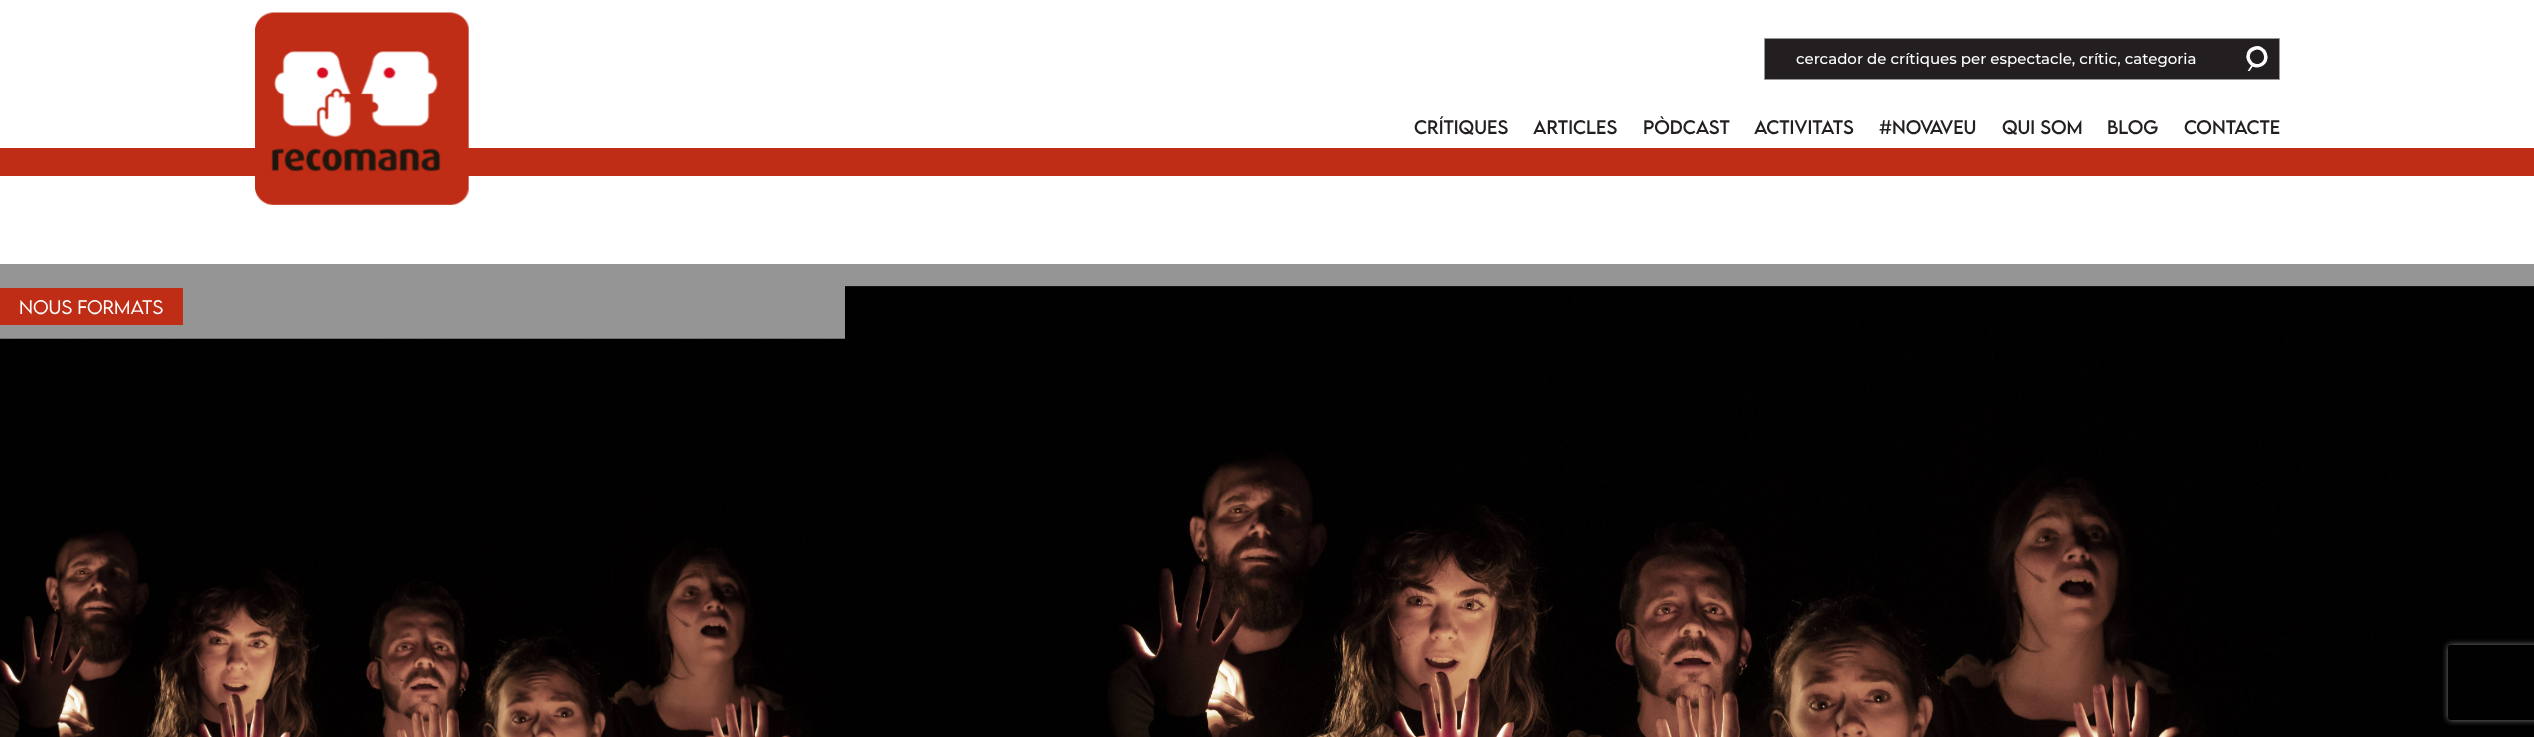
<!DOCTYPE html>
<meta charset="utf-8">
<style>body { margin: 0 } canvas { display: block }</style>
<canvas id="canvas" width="2534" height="737"></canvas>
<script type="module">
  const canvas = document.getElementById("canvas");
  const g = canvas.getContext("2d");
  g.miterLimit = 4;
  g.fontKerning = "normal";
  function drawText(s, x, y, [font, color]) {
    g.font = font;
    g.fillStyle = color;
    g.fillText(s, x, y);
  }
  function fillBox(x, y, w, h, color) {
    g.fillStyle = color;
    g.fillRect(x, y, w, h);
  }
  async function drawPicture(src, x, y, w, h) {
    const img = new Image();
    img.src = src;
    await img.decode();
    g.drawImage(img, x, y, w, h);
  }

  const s1 = ["500 15px Montserrat", "#FFFFFF"];
  const s2 = ["17.5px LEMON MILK", "#231F20"];
  const s3 = ["300 17.5px LEMON MILK", "#FFFFFF"];

  fillBox(0, 0, 2534, 737, "#FFFFFF");
  fillBox(0, 148, 2534, 28, "#C02D16");
  await drawPicture("pic1.png", 255, 12, 214, 193);
  g.fillStyle = "#231F20";
  g.beginPath();
  g.rect(1764.5, 38.5, 515, 41);
  g.fill();
  g.strokeStyle = "#979795";
  g.stroke();
  drawText("cercador de crítiques per espectacle, crític, categoria", 1796, 64, s1);
  g.beginPath();
  g.moveTo(2254, 48.5);
  g.bezierCurveTo(2264.5, 44.5, 2271, 60.5, 2260.5, 65);
  g.bezierCurveTo(2249.5, 69.5, 2242.5, 52.5, 2254, 48.5);
  g.strokeStyle = "#FFFFFF";
  g.lineWidth = 3.5;
  g.stroke();
  g.save();
  g.beginPath();
  g.rect(2246, 46, 22, 25);
  g.clip();
  g.beginPath();
  g.moveTo(2253.5, 63.5);
  g.lineTo(2248, 72);
  g.lineWidth = 1.7;
  g.stroke();
  g.restore();
  drawText("CRÍTIQUES", 1414, 134, s2);
  drawText("ARTICLES", 1533, 134, s2);
  drawText("PÒDCAST", 1643, 134, s2);
  drawText("ACTIVITATS", 1754, 134, s2);
  drawText("#NOVAVEU", 1879, 134, s2);
  drawText("QUI SOM", 2002, 134, s2);
  drawText("BLOG", 2107, 134, s2);
  drawText("CONTACTE", 2184, 134, s2);
  fillBox(0, 264, 845, 75, "#959595");
  await drawPicture("pic2.png", 0, 338, 845, 399);
  fillBox(845, 264, 1689, 23, "#959595");
  await drawPicture("pic3.png", 845, 286, 1689, 451);
  fillBox(0, 288, 183, 37, "#C02D16");
  drawText("Nous formats", 19, 314, s3);
  g.save();
  g.beginPath();
  g.moveTo(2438, 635);
  g.lineTo(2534, 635);
  g.lineTo(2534, 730);
  g.lineTo(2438, 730);
  g.closePath();
  g.moveTo(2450.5, 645);
  g.lineTo(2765.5, 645);
  g.bezierCurveTo(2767, 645, 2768, 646, 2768, 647.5);
  g.lineTo(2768, 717.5);
  g.bezierCurveTo(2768, 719, 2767, 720, 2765.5, 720);
  g.lineTo(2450.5, 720);
  g.bezierCurveTo(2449, 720, 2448, 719, 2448, 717.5);
  g.lineTo(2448, 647.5);
  g.bezierCurveTo(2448, 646, 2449, 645, 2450.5, 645);
  g.closePath();
  g.clip("evenodd");
  g.fillStyle = "#808080";
  g.filter = "blur(3px)";
  g.beginPath();
  g.roundRect(2448, 645, 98, 75, 2.5);
  g.fill();
  g.filter = "none";
  g.restore();
</script>
